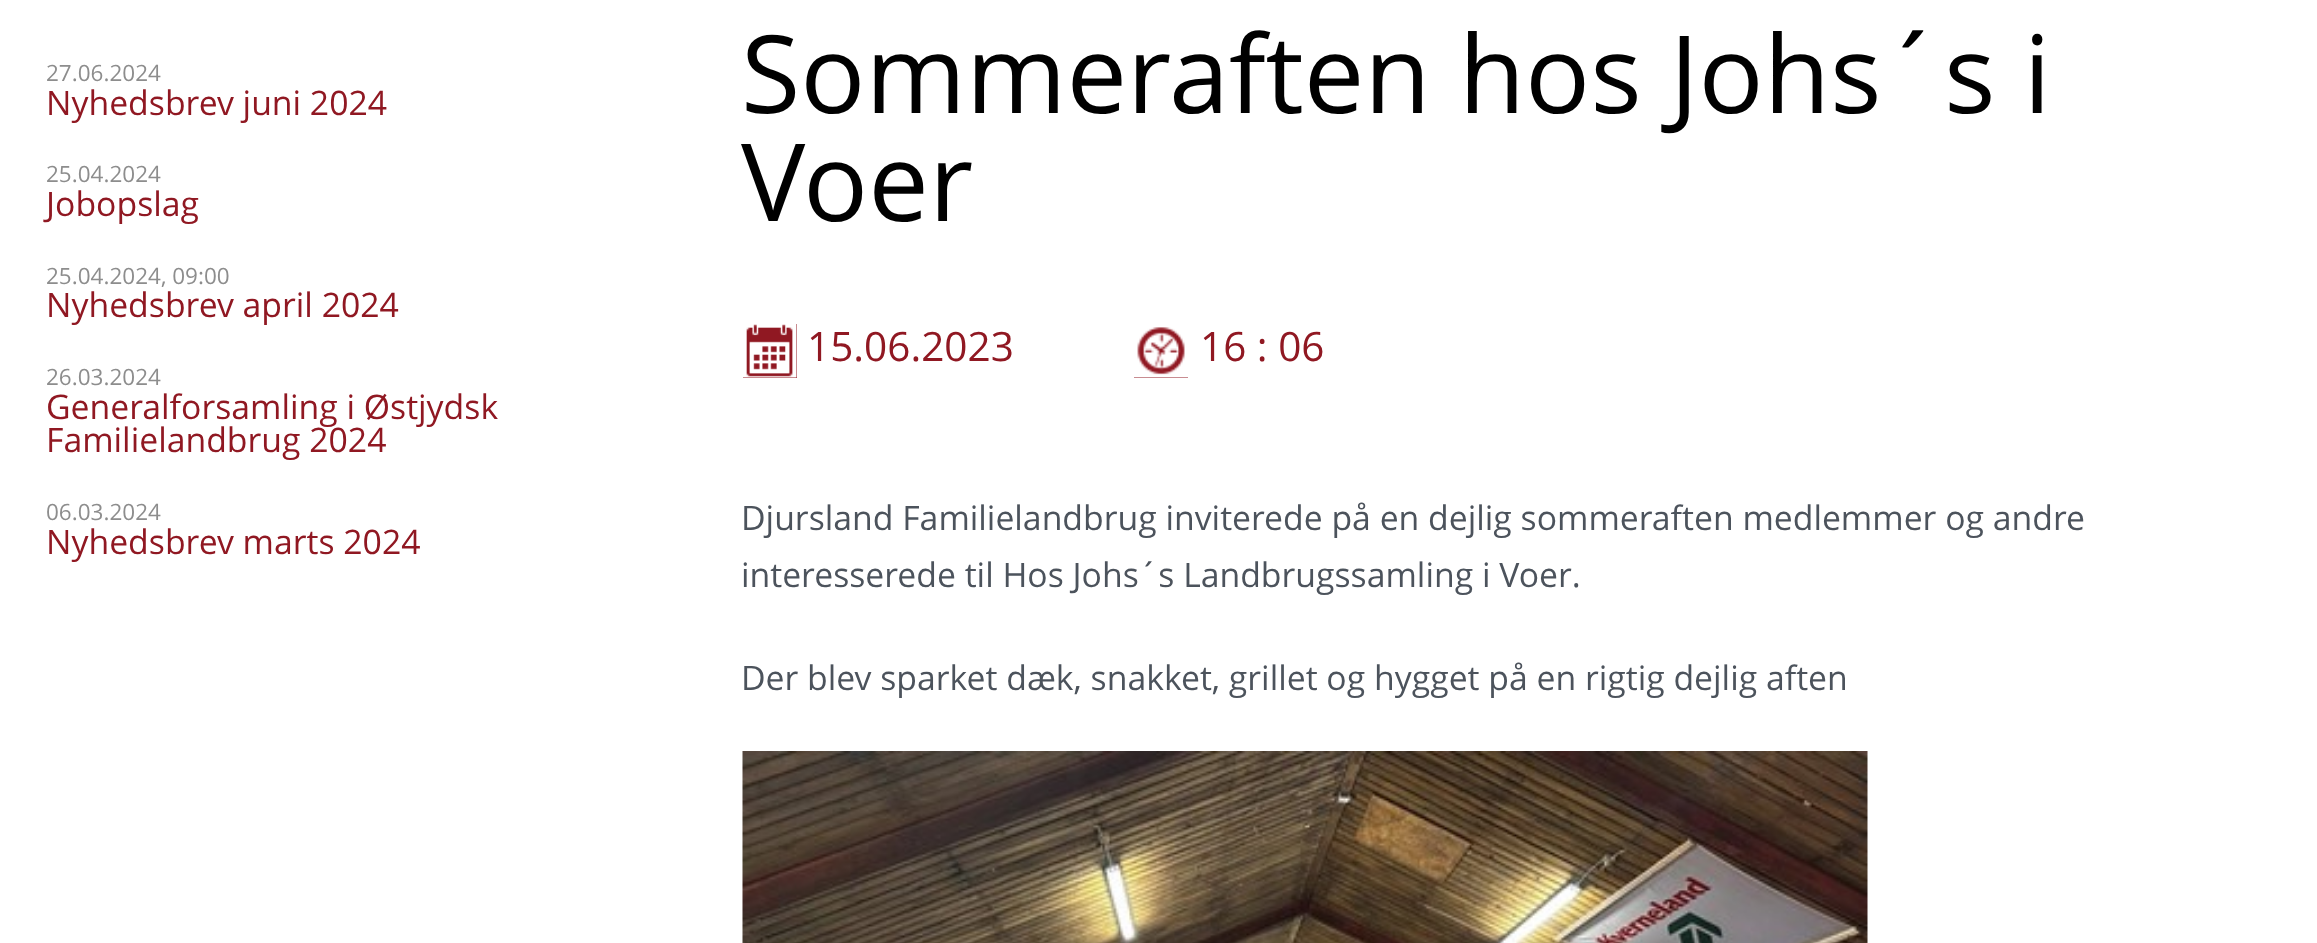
<!DOCTYPE html>
<meta charset="utf-8">
<style>body { margin: 0 } canvas { display: block }</style>
<canvas id="canvas" width="2317" height="943"></canvas>
<script type="module">
  const canvas = document.getElementById("canvas");
  const g = canvas.getContext("2d");
  g.miterLimit = 4;
  g.fontKerning = "normal";
  function drawText(s, x, y, [font, color]) {
    g.font = font;
    g.fillStyle = color;
    g.fillText(s, x, y);
  }
  function fillBox(x, y, w, h, color) {
    g.fillStyle = color;
    g.fillRect(x, y, w, h);
  }
  async function drawPicture(src, x, y, w, h) {
    const img = new Image();
    img.src = src;
    await img.decode();
    g.drawImage(img, x, y, w, h);
  }

  const s1 = ["22.5px Open Sans", "#8D8D8D"];
  const s2 = ["33.75px Open Sans", "#901822"];
  const s3 = ["108px Open Sans", "#000000"];
  const s4 = ["40.5px Open Sans", "#901822"];
  const s5 = ["33.75px Open Sans", "#4C535C"];

  fillBox(0, 0, 2317, 943, "#FFFFFF");
  drawText("27.06.2024", 46, 81, s1);
  drawText("Nyhedsbrev juni 2024", 46, 115, s2);
  drawText("25.04.2024", 46, 182, s1);
  drawText("Jobopslag", 46, 216, s2);
  drawText("25.04.2024, 09:00", 46, 284, s1);
  drawText("Nyhedsbrev april 2024", 46, 317, s2);
  drawText("26.03.2024", 46, 385, s1);
  drawText("Generalforsamling i Østjydsk", 46, 419, s2);
  drawText("Familielandbrug 2024", 46, 452, s2);
  drawText("06.03.2024", 46, 520, s1);
  drawText("Nyhedsbrev marts 2024", 46, 554, s2);
  drawText("Sommeraften hos Johs´s i", 741, 113, s3);
  drawText("Voer", 741, 221, s3);
  fillBox(743, 324, 54, 54, "#901822");
  await drawPicture("pic1.png", 743, 324, 54, 54);
  drawText("15.06.2023", 807, 361, s4);
  fillBox(1134, 327, 54, 51, "#901822");
  await drawPicture("pic2.png", 1134, 324, 54, 54);
  drawText("16 : 06", 1200, 361, s4);
  drawText("Djursland Familielandbrug inviterede på en dejlig sommeraften medlemmer og andre", 741, 530, s5);
  drawText("interesserede til Hos Johs´s Landbrugssamling i Voer.", 741, 587, s5);
  drawText("Der blev sparket dæk, snakket, grillet og hygget på en rigtig dejlig aften", 741, 690, s5);
  await drawPicture("pic3.png", 742, 751, 1126, 192);
</script>
